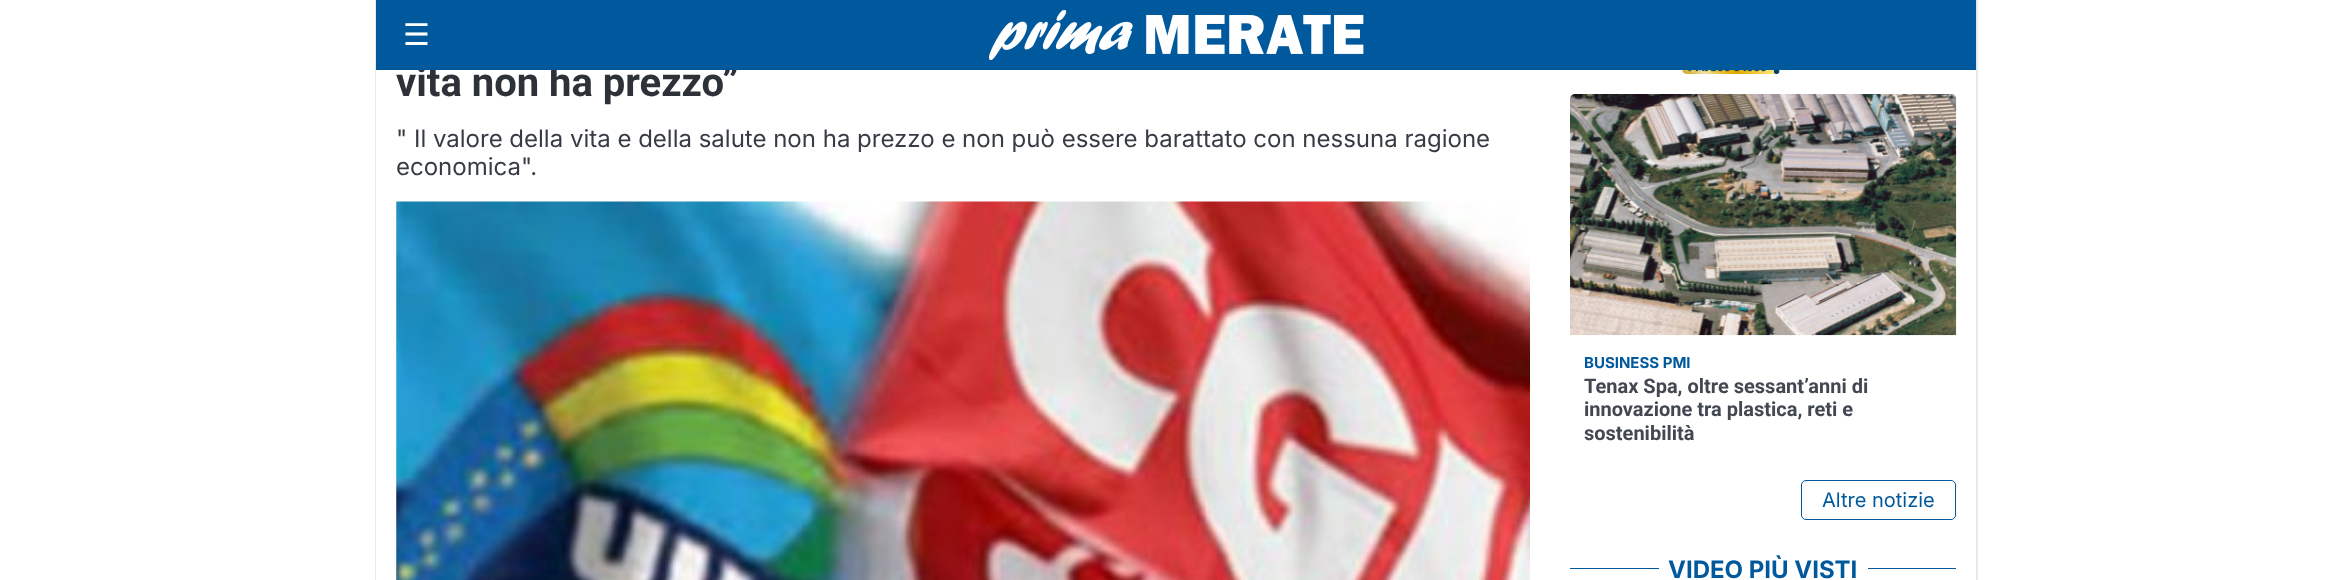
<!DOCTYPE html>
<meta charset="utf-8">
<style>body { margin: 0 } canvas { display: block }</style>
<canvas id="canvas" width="2352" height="580"></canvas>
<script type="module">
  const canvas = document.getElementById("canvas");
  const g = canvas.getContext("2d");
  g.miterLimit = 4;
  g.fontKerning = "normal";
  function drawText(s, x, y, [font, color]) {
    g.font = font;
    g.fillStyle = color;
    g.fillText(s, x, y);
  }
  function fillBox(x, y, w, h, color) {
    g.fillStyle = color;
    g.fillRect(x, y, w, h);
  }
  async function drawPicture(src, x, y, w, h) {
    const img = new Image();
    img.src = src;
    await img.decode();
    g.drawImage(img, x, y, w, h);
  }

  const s1 = ["bold 40px Roboto", "#2D3138"];
  const s2 = ["30px DejaVu Sans", "#FFFFFF"];
  const s3 = ["24px Inter", "#373C44"];
  const s4 = ["bold 15px Inter", "#00599C"];
  const s5 = ["bold 20px Roboto", "#424751"];
  const s6 = ["20px Inter", "#00599C"];
  const s7 = ["bold 24px Inter", "#00599C"];

  fillBox(0, 0, 2352, 580, "#FFFFFF");
  drawText("vita non ha prezzo”", 396, 96, s1);
  fillBox(376, 0, 1600, 70, "#00599C");
  drawText("☰", 403, 45, s2);
  await drawPicture("pic1.png", 989, 10, 375, 50);
  fillBox(1976, 0, 2, 580, "#E7EAF0");
  fillBox(375, 0, 1, 580, "#E7EAF0");
  drawText("\" Il valore della vita e della salute non ha prezzo e non può essere barattato con nessuna ragione", 396, 147, s3);
  drawText("economica\".", 396, 175, s3);
  await drawPicture("pic2.png", 396, 201, 1134, 379);
  await drawPicture("pic3.png", 1682, 70, 98, 4);
  await drawPicture("pic4.png", 1570, 94, 387, 242);
  drawText("BUSINESS PMI", 1584, 368, s4);
  drawText("Tenax Spa, oltre sessant’anni di", 1584, 393, s5);
  drawText("innovazione tra plastica, reti e", 1584, 416, s5);
  drawText("sostenibilità", 1584, 440, s5);
  g.beginPath();
  g.roundRect(1801.5, 480.5, 154, 39, 4.5);
  g.strokeStyle = "#00599C";
  g.stroke();
  drawText("Altre notizie", 1822, 507, s6);
  fillBox(1570, 568, 386, 1, "#00599C");
  fillBox(1659, 568, 209, 1, "#FFFFFF");
  drawText("VIDEO PIÙ VISTI", 1668, 578, s7);
</script>
